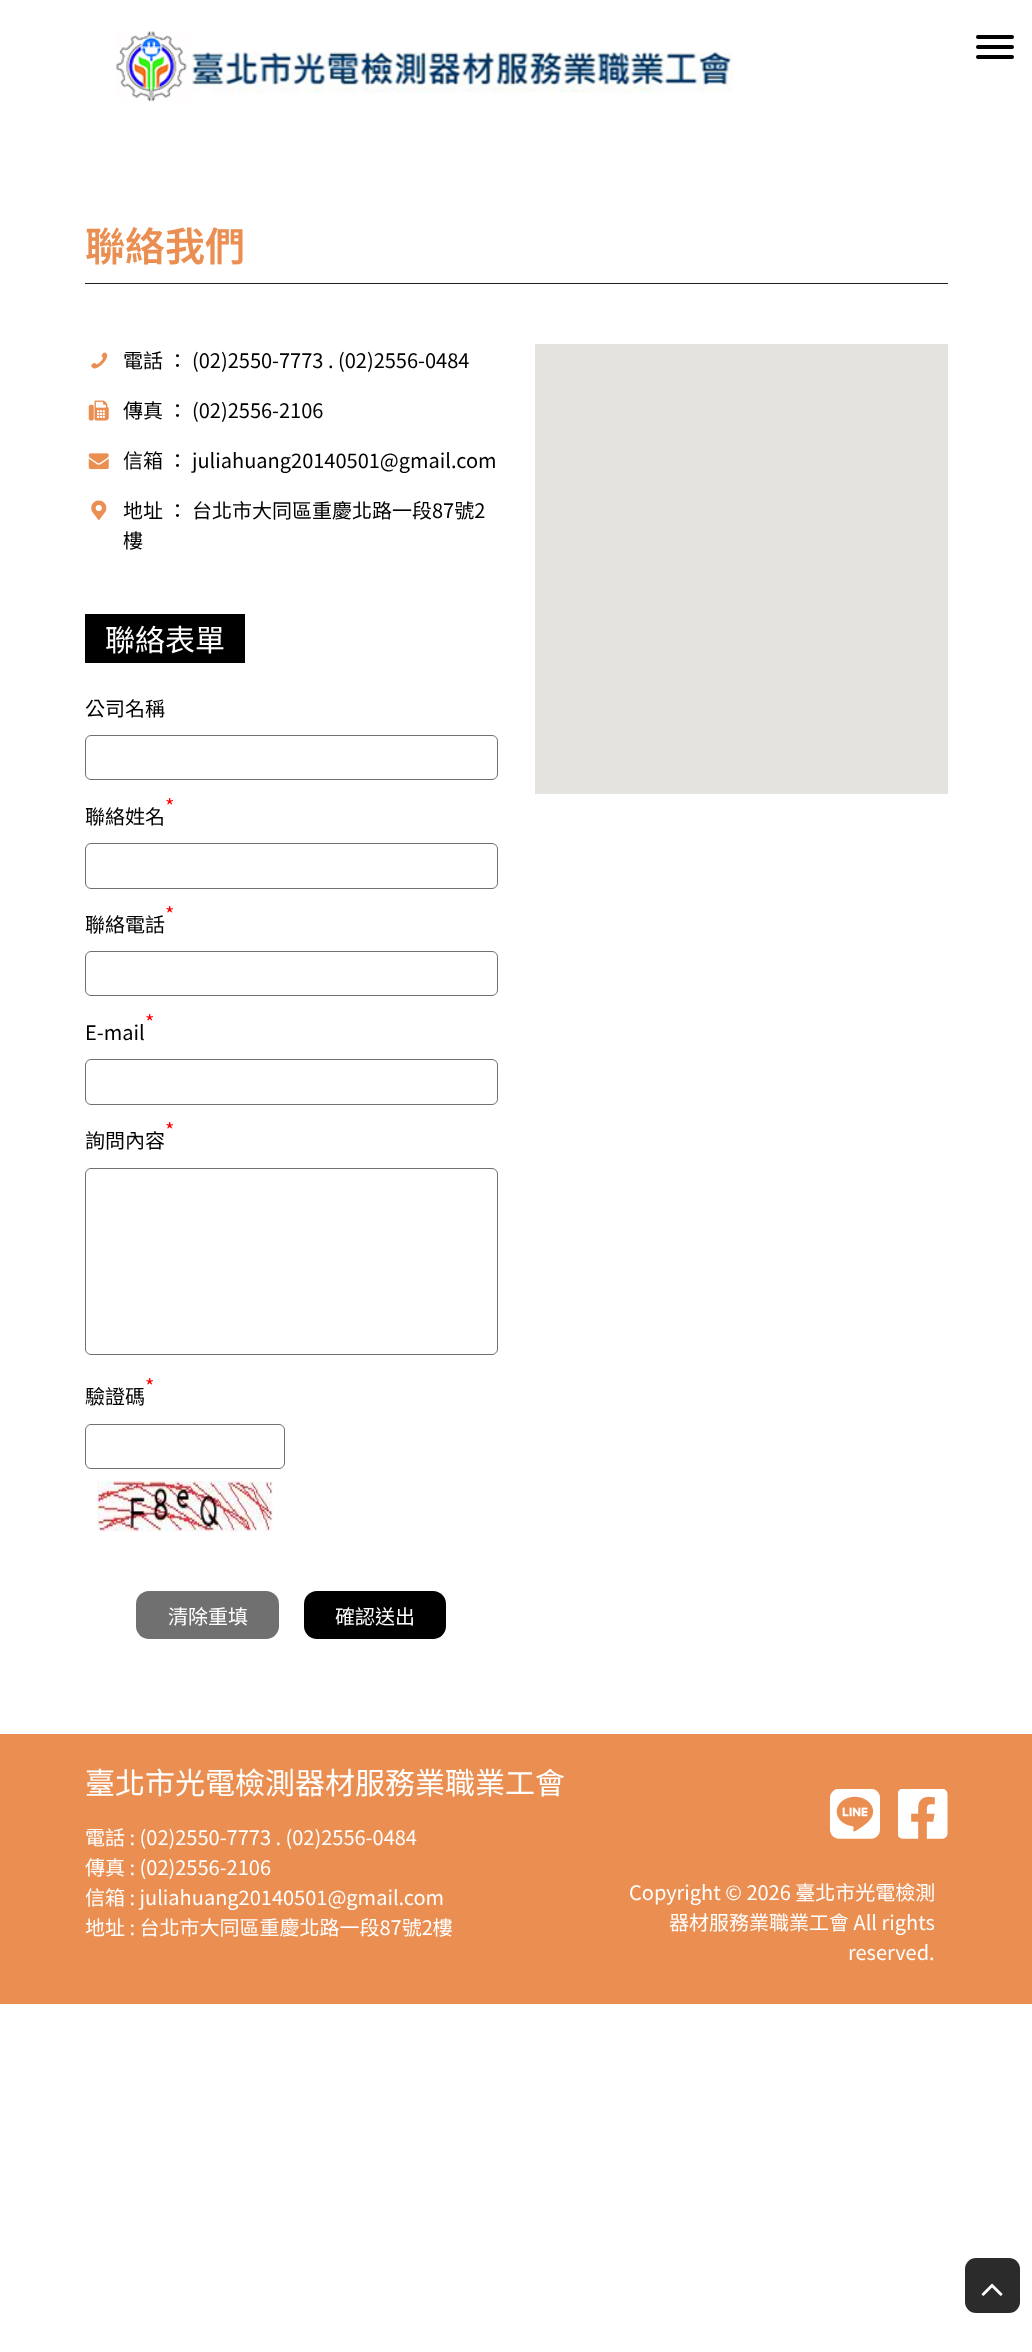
<!DOCTYPE html>
<meta charset="utf-8">
<style>body { margin: 0 } canvas { display: block }</style>
<canvas id="canvas" width="1032" height="2352"></canvas>
<script type="module">
  const canvas = document.getElementById("canvas");
  const g = canvas.getContext("2d");
  g.miterLimit = 4;
  g.fontKerning = "normal";
  function drawText(s, x, y, [font, color]) {
    g.font = font;
    g.fillStyle = color;
    g.fillText(s, x, y);
  }
  function fillBox(x, y, w, h, color) {
    g.fillStyle = color;
    g.fillRect(x, y, w, h);
  }
  function fillRounded(x, y, w, h, r, color) {
    g.fillStyle = color;
    g.beginPath();
    g.roundRect(x, y, w, h, r);
    g.fill();
  }
  async function drawPicture(src, x, y, w, h) {
    const img = new Image();
    img.src = src;
    await img.decode();
    g.drawImage(img, x, y, w, h);
  }

  const s1 = ["600 40px Noto Sans TC", "#EA8E51"];
  const s2 = ["20px Noto Sans TC", "#000000"];
  const s3 = ["30px Noto Sans TC", "#FFFFFF"];
  const s4 = ["20px Noto Sans TC", "#FF0000"];
  const s5 = ["20px Noto Sans TC", "#FFFFFF"];

  fillBox(0, 0, 1032, 2352, "#FFFFFF");
  await drawPicture("pic1.png", 116, 31, 617, 71);
  fillRounded(976, 35, 38, 4, 2, "#000000");
  fillRounded(976, 45, 38, 4, 2, "#000000");
  fillRounded(976, 55, 38, 4, 2, "#000000");
  drawText("聯絡我們", 85, 261, s1);
  fillBox(85, 283, 863, 1, "#221E1F");
  await drawPicture("pic2.png", 91, 352, 17, 17);
  drawText("電話 ： (02)2550-7773 . (02)2556-0484", 123, 368, s2);
  await drawPicture("pic3.png", 88, 400, 21, 21);
  drawText("傳真 ： (02)2556-2106", 123, 418, s2);
  await drawPicture("pic4.png", 88, 453, 21, 17);
  drawText("信箱 ： juliahuang20140501@gmail.com", 123, 468, s2);
  await drawPicture("pic5.png", 91, 500, 16, 21);
  drawText("地址 ： 台北市大同區重慶北路一段87號2", 123, 518, s2);
  drawText("樓", 123, 548, s2);
  fillBox(85, 614, 160, 49, "#000000");
  drawText("聯絡表單", 105, 651, s3);
  drawText("公司名稱", 85, 716, s2);
  g.beginPath();
  g.roundRect(85.5, 735.5, 412, 44, 5.5);
  g.strokeStyle = "#707070";
  g.stroke();
  drawText("*", 165, 814, s4);
  drawText("聯絡姓名", 85, 824, s2);
  g.beginPath();
  g.roundRect(85.5, 843.5, 412, 45, 5.5);
  g.stroke();
  drawText("*", 165, 922, s4);
  drawText("聯絡電話", 85, 932, s2);
  g.beginPath();
  g.roundRect(85.5, 951.5, 412, 44, 5.5);
  g.stroke();
  drawText("*", 145, 1030, s4);
  drawText("E-mail", 85, 1040, s2);
  g.beginPath();
  g.roundRect(85.5, 1059.5, 412, 45, 5.5);
  g.stroke();
  drawText("*", 165, 1138, s4);
  drawText("詢問內容", 85, 1148, s2);
  g.beginPath();
  g.roundRect(85.5, 1168.5, 412, 186, 5.5);
  g.stroke();
  drawText("*", 145, 1394, s4);
  drawText("驗證碼", 85, 1404, s2);
  g.beginPath();
  g.roundRect(85.5, 1424.5, 199, 44, 5.5);
  g.stroke();
  await drawPicture("pic6.png", 97, 1481, 176, 51);
  fillRounded(136, 1591, 143, 48, 13, "#707070");
  drawText("清除重填", 168, 1624, s5);
  fillRounded(304, 1591, 142, 48, 13, "#000000");
  drawText("確認送出", 335, 1624, s5);
  fillBox(535, 344, 413, 450, "#E5E3DF");
  fillBox(0, 1734, 1032, 270, "#EA8E51");
  drawText("臺北市光電檢測器材服務業職業工會", 85, 1794, s3);
  drawText("電話 : (02)2550-7773 . (02)2556-0484", 85, 1845, s5);
  drawText("傳真 : (02)2556-2106", 85, 1875, s5);
  drawText("信箱 : juliahuang20140501@gmail.com", 85, 1905, s5);
  drawText("地址 : 台北市大同區重慶北路一段87號2樓", 85, 1935, s5);
  await drawPicture("pic7.png", 830, 1789, 50, 50);
  await drawPicture("pic8.png", 898, 1789, 50, 50);
  drawText("Copyright © 2026 臺北市光電檢測", 629, 1900, s5);
  drawText("器材服務業職業工會 All rights", 669, 1930, s5);
  drawText("reserved.", 848, 1960, s5);
  fillRounded(965, 2258, 55, 55, 11, "#2B2B2B");
  await drawPicture("pic9.png", 981, 2283, 22, 13);
</script>
